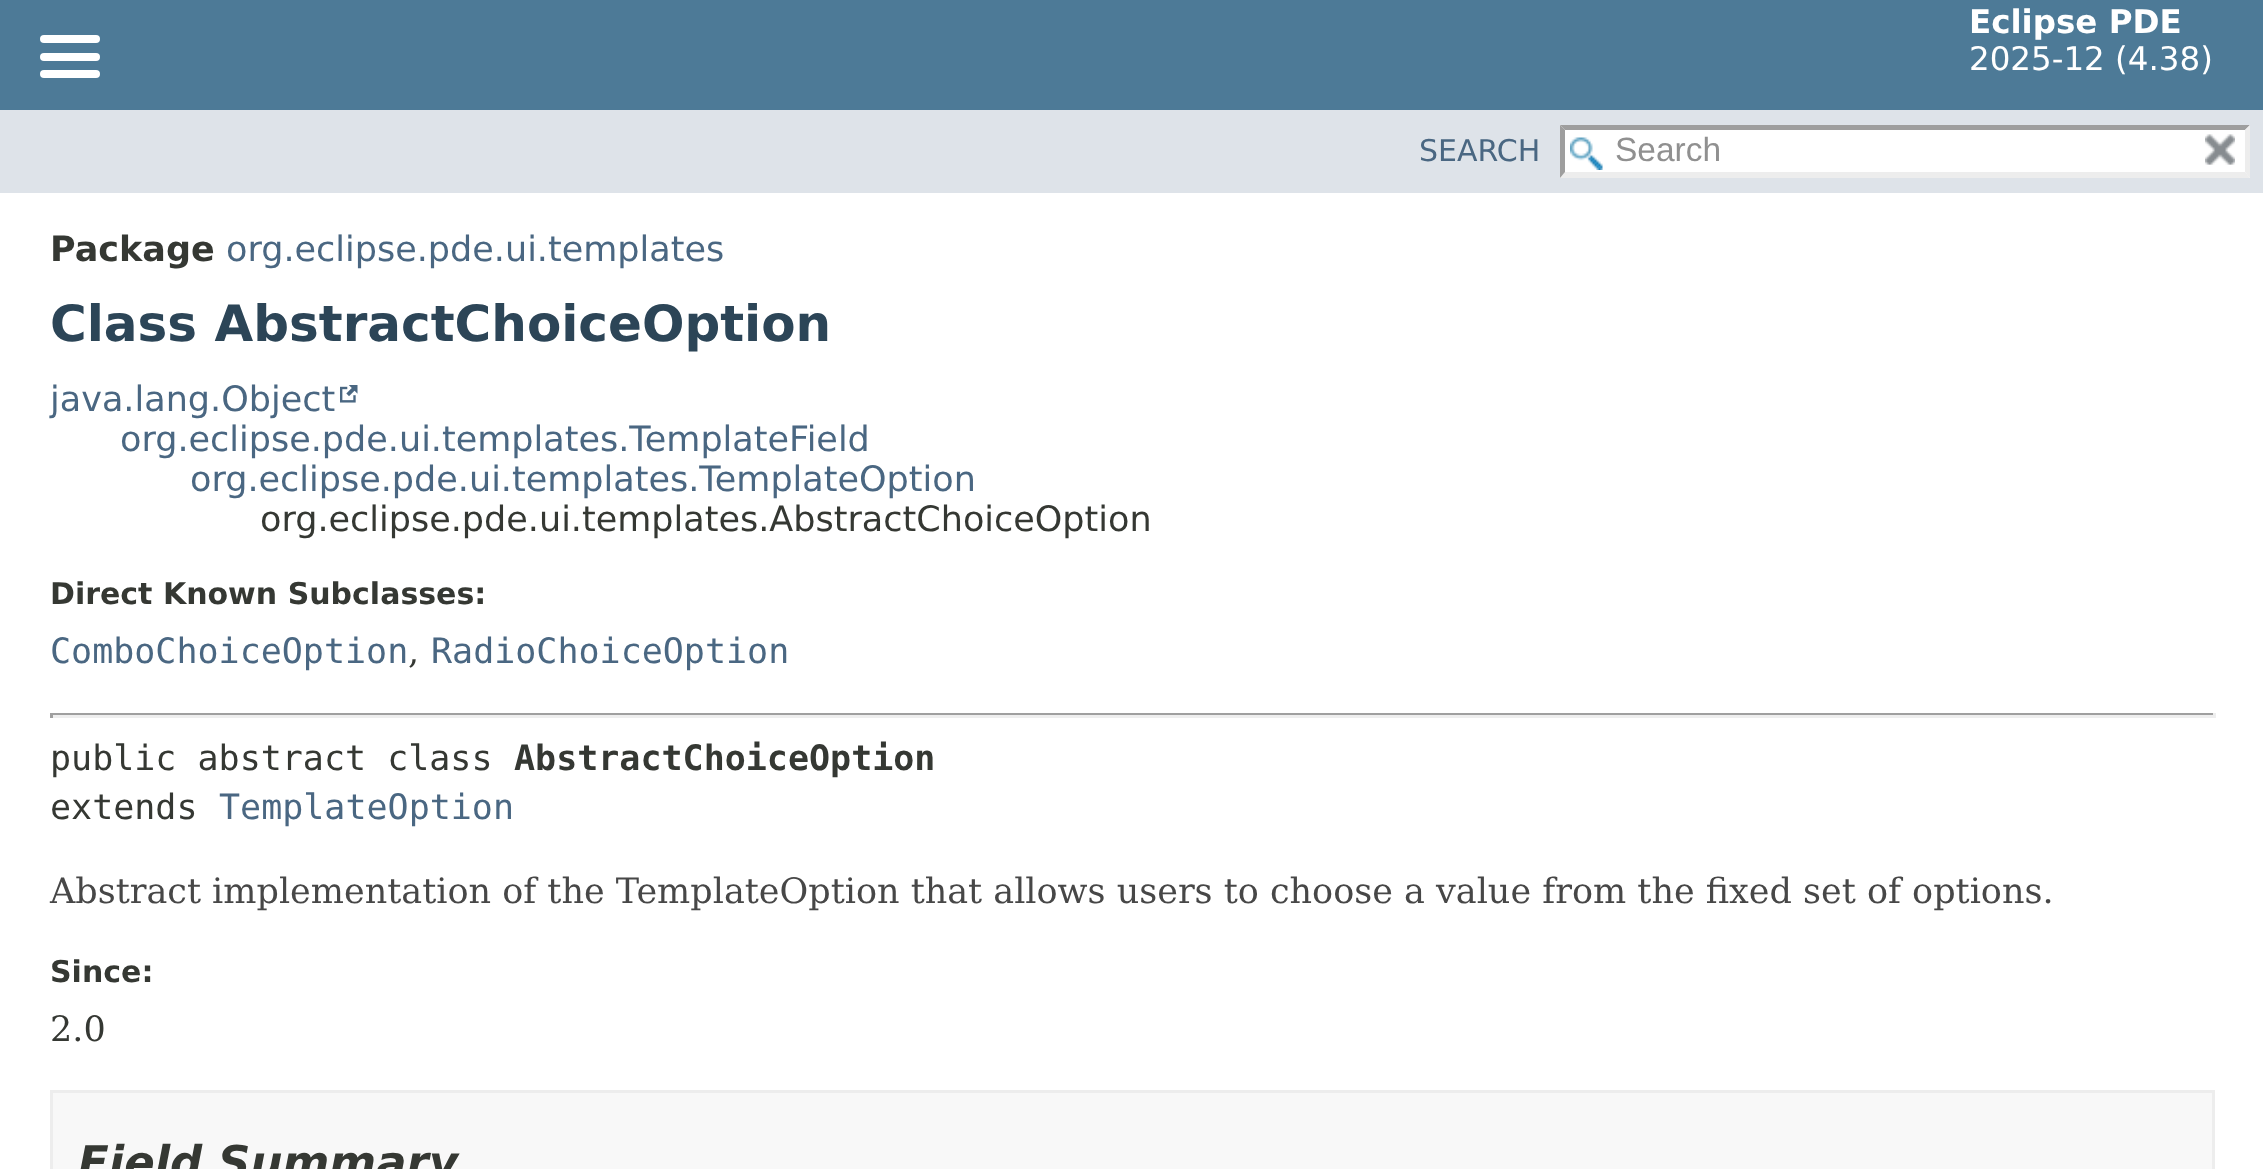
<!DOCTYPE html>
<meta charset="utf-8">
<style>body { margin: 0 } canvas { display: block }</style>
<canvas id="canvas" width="2263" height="1169"></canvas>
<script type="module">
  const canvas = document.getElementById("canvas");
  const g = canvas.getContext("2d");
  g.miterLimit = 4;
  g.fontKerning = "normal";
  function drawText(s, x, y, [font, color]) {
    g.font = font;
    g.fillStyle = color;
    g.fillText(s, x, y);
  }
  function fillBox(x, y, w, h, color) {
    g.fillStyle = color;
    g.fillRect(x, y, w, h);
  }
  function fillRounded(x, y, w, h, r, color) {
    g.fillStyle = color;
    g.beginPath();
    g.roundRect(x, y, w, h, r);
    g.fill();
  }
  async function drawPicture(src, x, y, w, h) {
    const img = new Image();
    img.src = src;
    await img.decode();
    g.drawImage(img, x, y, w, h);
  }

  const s1 = ["bold 32.5px DejaVu Sans", "#FFFFFF"];
  const s2 = ["32.5px DejaVu Sans", "#FFFFFF"];
  const s3 = ["30px DejaVu Sans", "#4A6782"];
  const s4 = ["33.5px Liberation Sans", "#909090"];
  const s5 = ["bold 35px DejaVu Sans", "#353833"];
  const s6 = ["35px DejaVu Sans", "#4A6782"];
  const s7 = ["bold 50px DejaVu Sans", "#2C4557"];
  const s8 = ["35px DejaVu Sans", "#353833"];
  const s9 = ["bold 30px DejaVu Sans", "#353833"];
  const s10 = ["35px DejaVu Sans Mono", "#4A6782"];
  const s11 = ["35px DejaVu Serif", "#353833"];
  const s12 = ["35px DejaVu Sans Mono", "#353833"];
  const s13 = ["bold 35px DejaVu Sans Mono", "#353833"];
  const s14 = ["35px DejaVu Serif", "#474747"];
  const s15 = ["italic bold 45px DejaVu Sans", "#353833"];

  fillBox(0, 0, 2263, 1169, "#FFFFFF");
  fillBox(0, 0, 2263, 110, "#4D7A97");
  fillRounded(40, 35, 60, 8, 4, "#FFFFFF");
  fillRounded(40, 53, 60, 8, 4, "#FFFFFF");
  fillRounded(40, 70, 60, 8, 4, "#FFFFFF");
  drawText("Eclipse PDE", 1969, 33, s1);
  drawText("2025-12 (4.38)", 1969, 70, s2);
  fillBox(0, 110, 2263, 83, "#DEE3E9");
  drawText("SEARCH", 1419, 161, s3);
  fillBox(1560, 125, 690, 53, "#FFFFFF");
  await drawPicture("pic1.png", 1570, 137, 33, 33);
  g.fillStyle = "#9E9E9E";
  g.beginPath();
  g.moveTo(1560, 125);
  g.lineTo(2250, 125);
  g.lineTo(2245, 130);
  g.lineTo(1565, 130);
  g.closePath();
  g.fill();
  g.fillStyle = "#EDEDED";
  g.beginPath();
  g.moveTo(2250, 125);
  g.lineTo(2250, 178);
  g.lineTo(2245, 172);
  g.lineTo(2245, 130);
  g.closePath();
  g.fill();
  g.beginPath();
  g.moveTo(2250, 178);
  g.lineTo(1560, 178);
  g.lineTo(1565, 172);
  g.lineTo(2245, 172);
  g.closePath();
  g.fill();
  g.fillStyle = "#9E9E9E";
  g.beginPath();
  g.moveTo(1560, 178);
  g.lineTo(1560, 125);
  g.lineTo(1565, 130);
  g.lineTo(1565, 172);
  g.closePath();
  g.fill();
  drawText("Search", 1615, 161, s4);
  await drawPicture("pic2.png", 2205, 134, 30, 31);
  drawText("Package", 50, 261, s5);
  drawText("org.eclipse.pde.ui.templates", 226, 261, s6);
  drawText("Class AbstractChoiceOption", 50, 341, s7);
  drawText("java.lang.Object", 50, 411, s6);
  await drawPicture("pic3.png", 340, 385, 18, 18);
  drawText("org.eclipse.pde.ui.templates.TemplateField", 120, 451, s6);
  drawText("org.eclipse.pde.ui.templates.TemplateOption", 190, 491, s6);
  drawText("org.eclipse.pde.ui.templates.AbstractChoiceOption", 260, 531, s8);
  drawText("Direct Known Subclasses:", 50, 604, s9);
  drawText("ComboChoiceOption", 50, 663, s10);
  drawText(",", 408, 663, s11);
  drawText("RadioChoiceOption", 431, 663, s10);
  fillBox(50, 713, 2165, 2, "#9F9F9F");
  fillBox(2213, 713, 3, 5, "#EEEEEE");
  fillBox(50, 715, 2165, 3, "#EEEEEE");
  fillBox(50, 713, 3, 5, "#9F9F9F");
  drawText("public abstract class", 50, 770, s12);
  drawText("AbstractChoiceOption", 514, 770, s13);
  drawText("extends", 50, 819, s12);
  drawText("TemplateOption", 219, 819, s10);
  drawText("Abstract implementation of the TemplateOption that allows users to choose a value from the fixed set of options.", 50, 903, s14);
  drawText("Since:", 50, 982, s9);
  drawText("2.0", 50, 1041, s11);
  g.fillStyle = "#F8F8F8";
  g.beginPath();
  g.rect(51.5, 1091.5, 2162, 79);
  g.fill();
  g.strokeStyle = "#EDEDED";
  g.lineWidth = 3;
  g.stroke();
  drawText("Field Summary", 78, 1178, s15);
</script>
